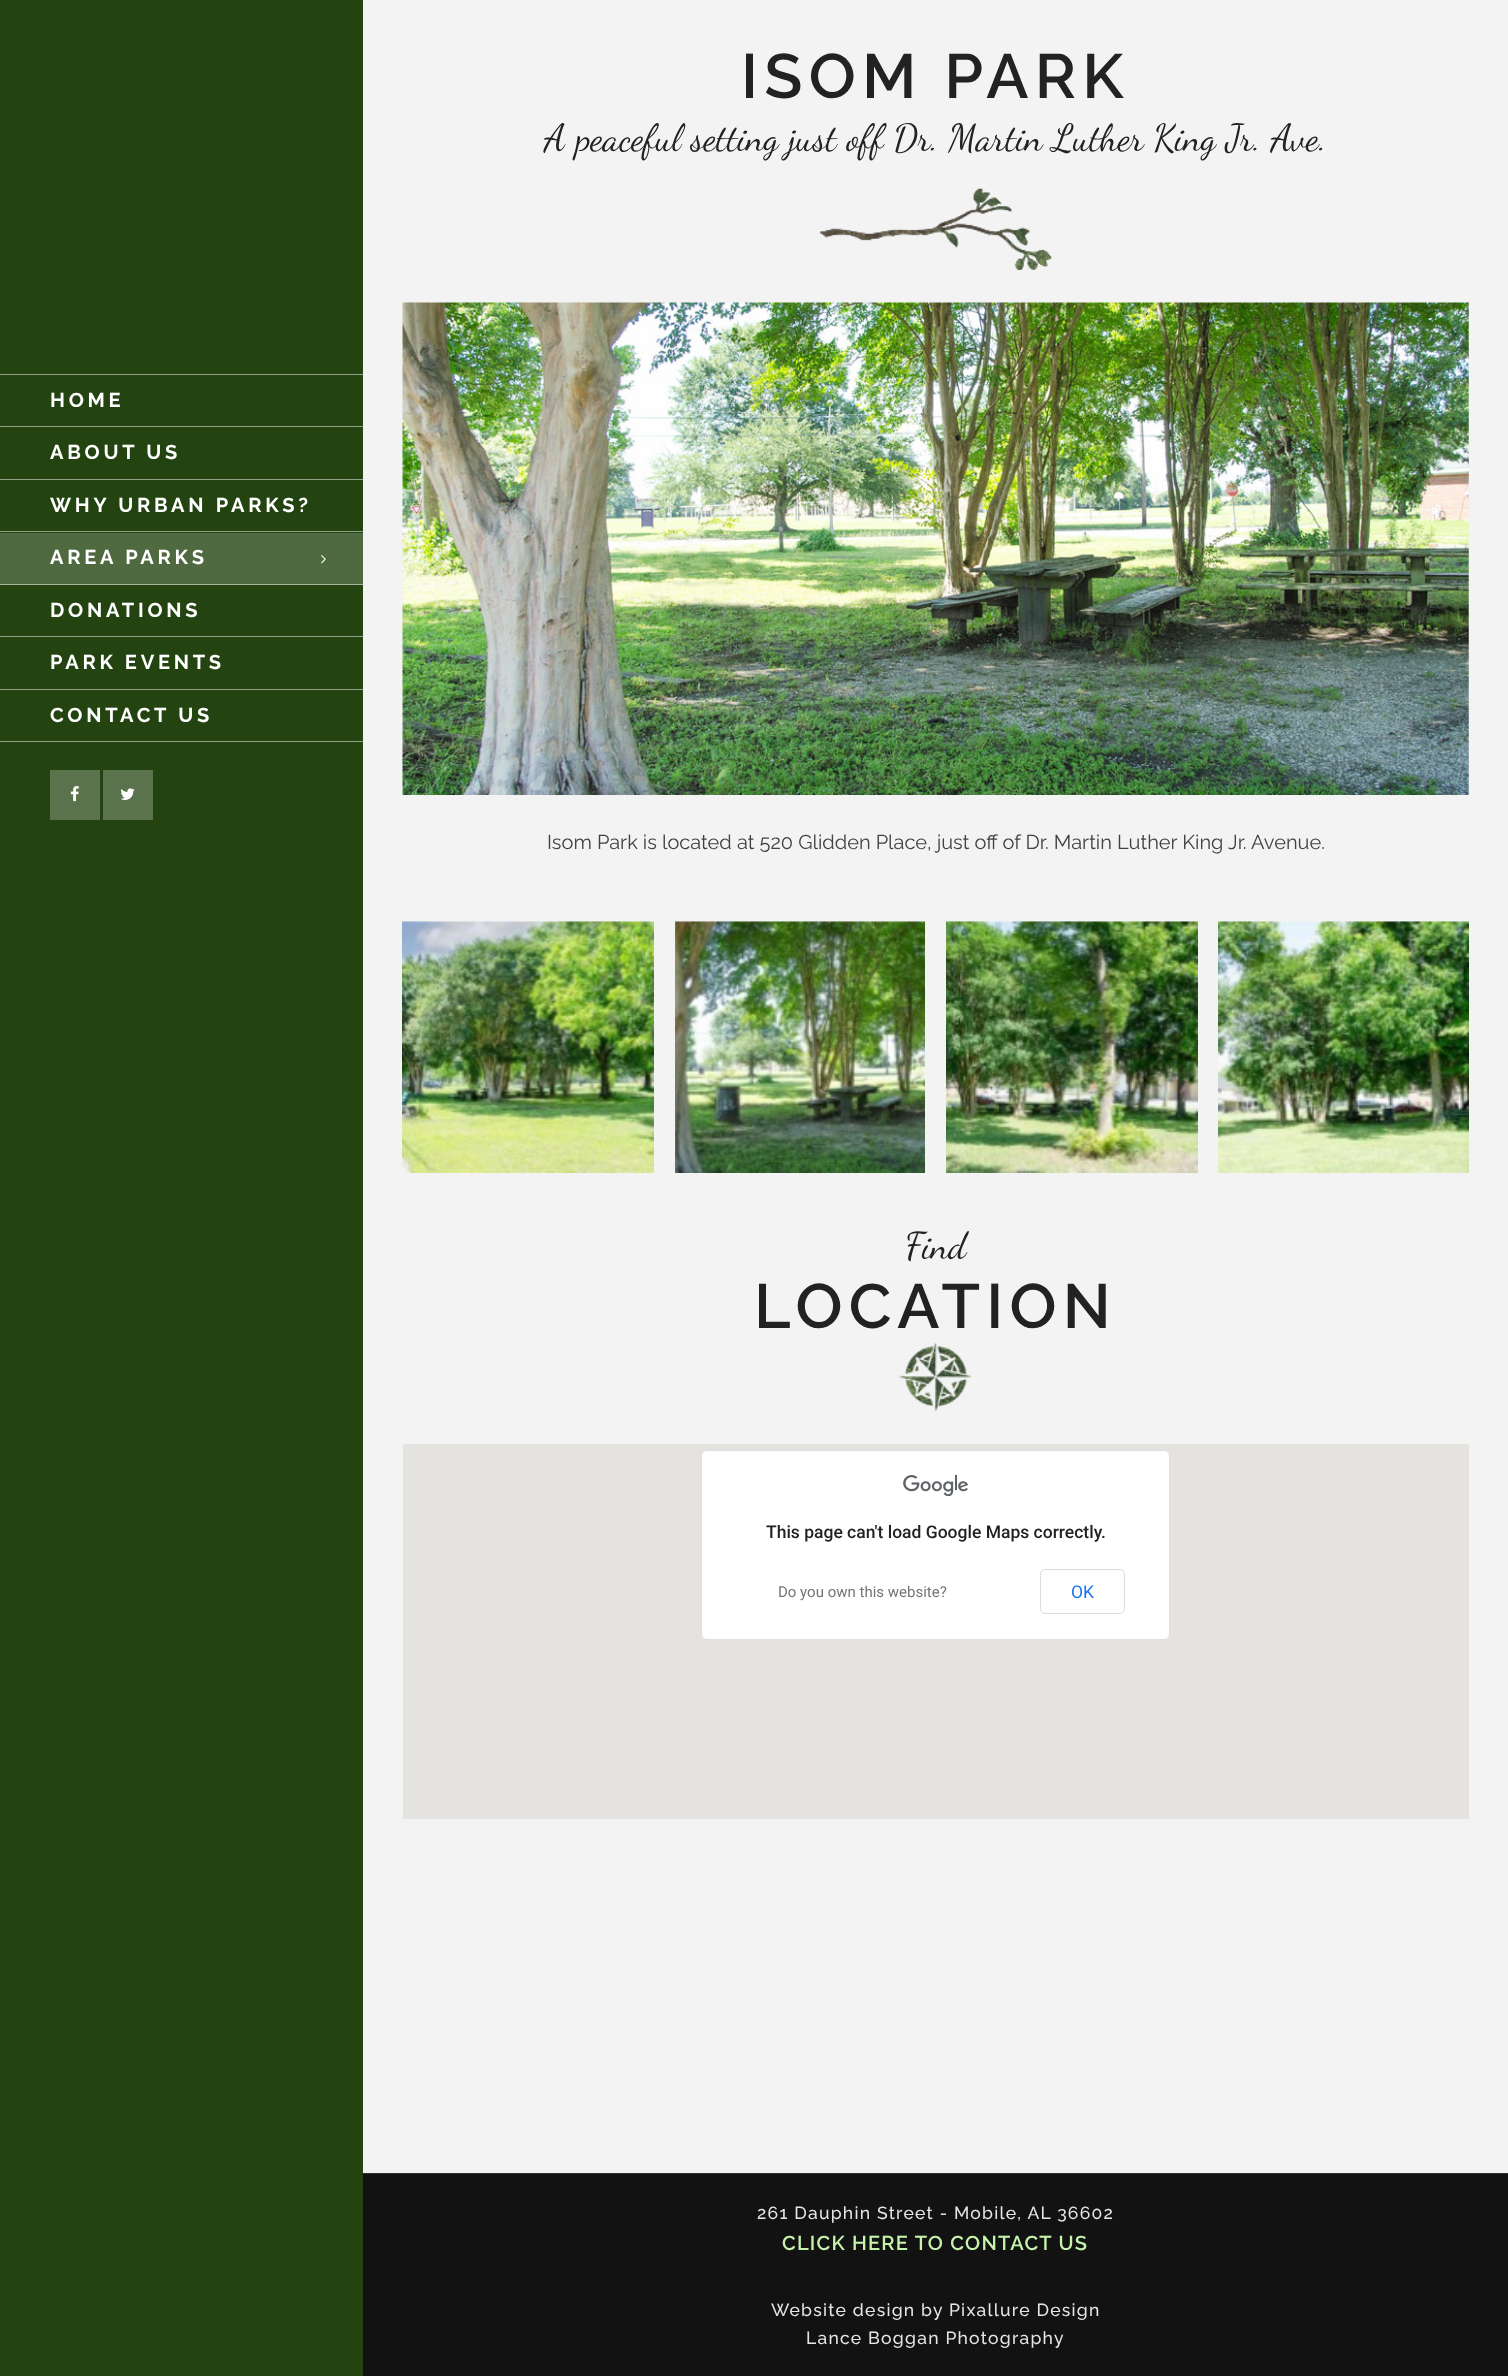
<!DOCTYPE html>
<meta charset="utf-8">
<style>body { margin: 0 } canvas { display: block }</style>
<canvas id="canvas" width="1508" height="2376"></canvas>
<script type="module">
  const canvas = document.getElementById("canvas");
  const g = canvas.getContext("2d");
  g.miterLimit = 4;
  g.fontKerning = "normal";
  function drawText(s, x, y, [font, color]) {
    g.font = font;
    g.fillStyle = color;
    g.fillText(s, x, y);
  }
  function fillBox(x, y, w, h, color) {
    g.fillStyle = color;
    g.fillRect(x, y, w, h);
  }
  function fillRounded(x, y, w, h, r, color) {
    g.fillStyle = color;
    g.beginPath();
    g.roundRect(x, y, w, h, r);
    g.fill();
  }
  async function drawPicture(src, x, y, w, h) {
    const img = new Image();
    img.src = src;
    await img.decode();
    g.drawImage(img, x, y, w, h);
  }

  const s1 = ["bold 20px Raleway", "#FFFFFF"];
  const s2 = ["600 62.5px Raleway", "#222222"];
  const s3 = ["37.5px Dancing Script", "#222222"];
  const s4 = ["20px Raleway", "#424242"];
  const s5 = ["500 17.5px Roboto", "#222222"];
  const s6 = ["15px Roboto", "#757575"];
  const s7 = ["17.5px Roboto", "#1A73E8"];
  const s8 = ["500 17.5px Raleway", "#E5E5E5"];
  const s9 = ["600 20px Raleway", "#C6F4AD"];

  fillBox(0, 0, 1508, 2376, "#F3F3F3");
  fillBox(0, 0, 363, 2376, "#234410");
  fillBox(0, 374, 363, 1, "#91A288");
  g.letterSpacing = "3.75px";
  drawText("HOME", 50, 407, s1);
  fillBox(0, 426, 363, 1, "#91A288");
  drawText("ABOUT US", 50, 459, s1);
  fillBox(0, 479, 363, 1, "#91A288");
  drawText("WHY URBAN PARKS?", 50, 512, s1);
  fillBox(0, 531, 363, 1, "#91A288");
  fillBox(0, 533, 363, 51, "#4F6940");
  drawText("AREA PARKS", 50, 564, s1);
  await drawPicture("pic1.png", 321, 555, 5, 9);
  fillBox(0, 584, 363, 1, "#A7B4A0");
  drawText("DONATIONS", 50, 617, s1);
  fillBox(0, 636, 363, 1, "#91A288");
  drawText("PARK EVENTS", 50, 669, s1);
  fillBox(0, 689, 363, 1, "#91A288");
  drawText("CONTACT US", 50, 722, s1);
  fillBox(0, 741, 363, 1, "#91A288");
  fillBox(50, 770, 50, 50, "#5A734C");
  await drawPicture("pic2.png", 70, 786, 9, 16);
  fillBox(103, 770, 50, 50, "#5A734C");
  await drawPicture("pic3.png", 120, 788, 15, 12);
  g.letterSpacing = "6.25px";
  drawText("ISOM PARK", 741, 98, s2);
  g.letterSpacing = "0px";
  drawText("A peaceful setting just off Dr. Martin Luther King Jr. Ave.", 544, 150, s3);
  await drawPicture("pic4.png", 820, 188, 232, 82);
  await drawPicture("pic5.png", 402, 302, 1067, 493);
  drawText("Isom Park is located at 520 Glidden Place, just off of Dr. Martin Luther King Jr. Avenue.", 547, 849, s4);
  await drawPicture("pic6.png", 402, 921, 252, 252);
  await drawPicture("pic7.png", 675, 921, 250, 252);
  await drawPicture("pic8.png", 946, 921, 252, 252);
  await drawPicture("pic9.png", 1218, 921, 251, 252);
  drawText("Find", 905, 1258, s3);
  g.letterSpacing = "6.25px";
  drawText("LOCATION", 754, 1328, s2);
  await drawPicture("pic10.png", 899, 1342, 73, 70);
  fillBox(403, 1444, 1066, 375, "#E5E3DF");
  fillRounded(701, 1450, 469, 190, 6, "#FFFFFF");
  g.beginPath();
  g.roundRect(701.5, 1450.5, 468, 189, 5.5);
  g.strokeStyle = "rgba(0, 0, 0, 0.12)";
  g.stroke();
  await drawPicture("pic11.png", 903, 1475, 65, 21);
  g.letterSpacing = "0px";
  drawText("This page can't load Google Maps correctly.", 766, 1538, s5);
  drawText("Do you own this website?", 778, 1597, s6);
  g.beginPath();
  g.roundRect(1040.5, 1569.5, 84, 44, 4.5);
  g.strokeStyle = "#DADCE0";
  g.stroke();
  drawText("OK", 1071, 1598, s7);
  fillBox(363, 2173, 1145, 1, "#333333");
  fillBox(363, 2174, 1145, 202, "#121212");
  g.letterSpacing = "1.25px";
  drawText("261 Dauphin Street - Mobile, AL 36602", 757, 2219, s8);
  drawText("CLICK HERE TO CONTACT US", 782, 2250, s9);
  drawText("Website design by Pixallure Design", 771, 2316, s8);
  drawText("Lance Boggan Photography", 806, 2344, s8);
</script>
